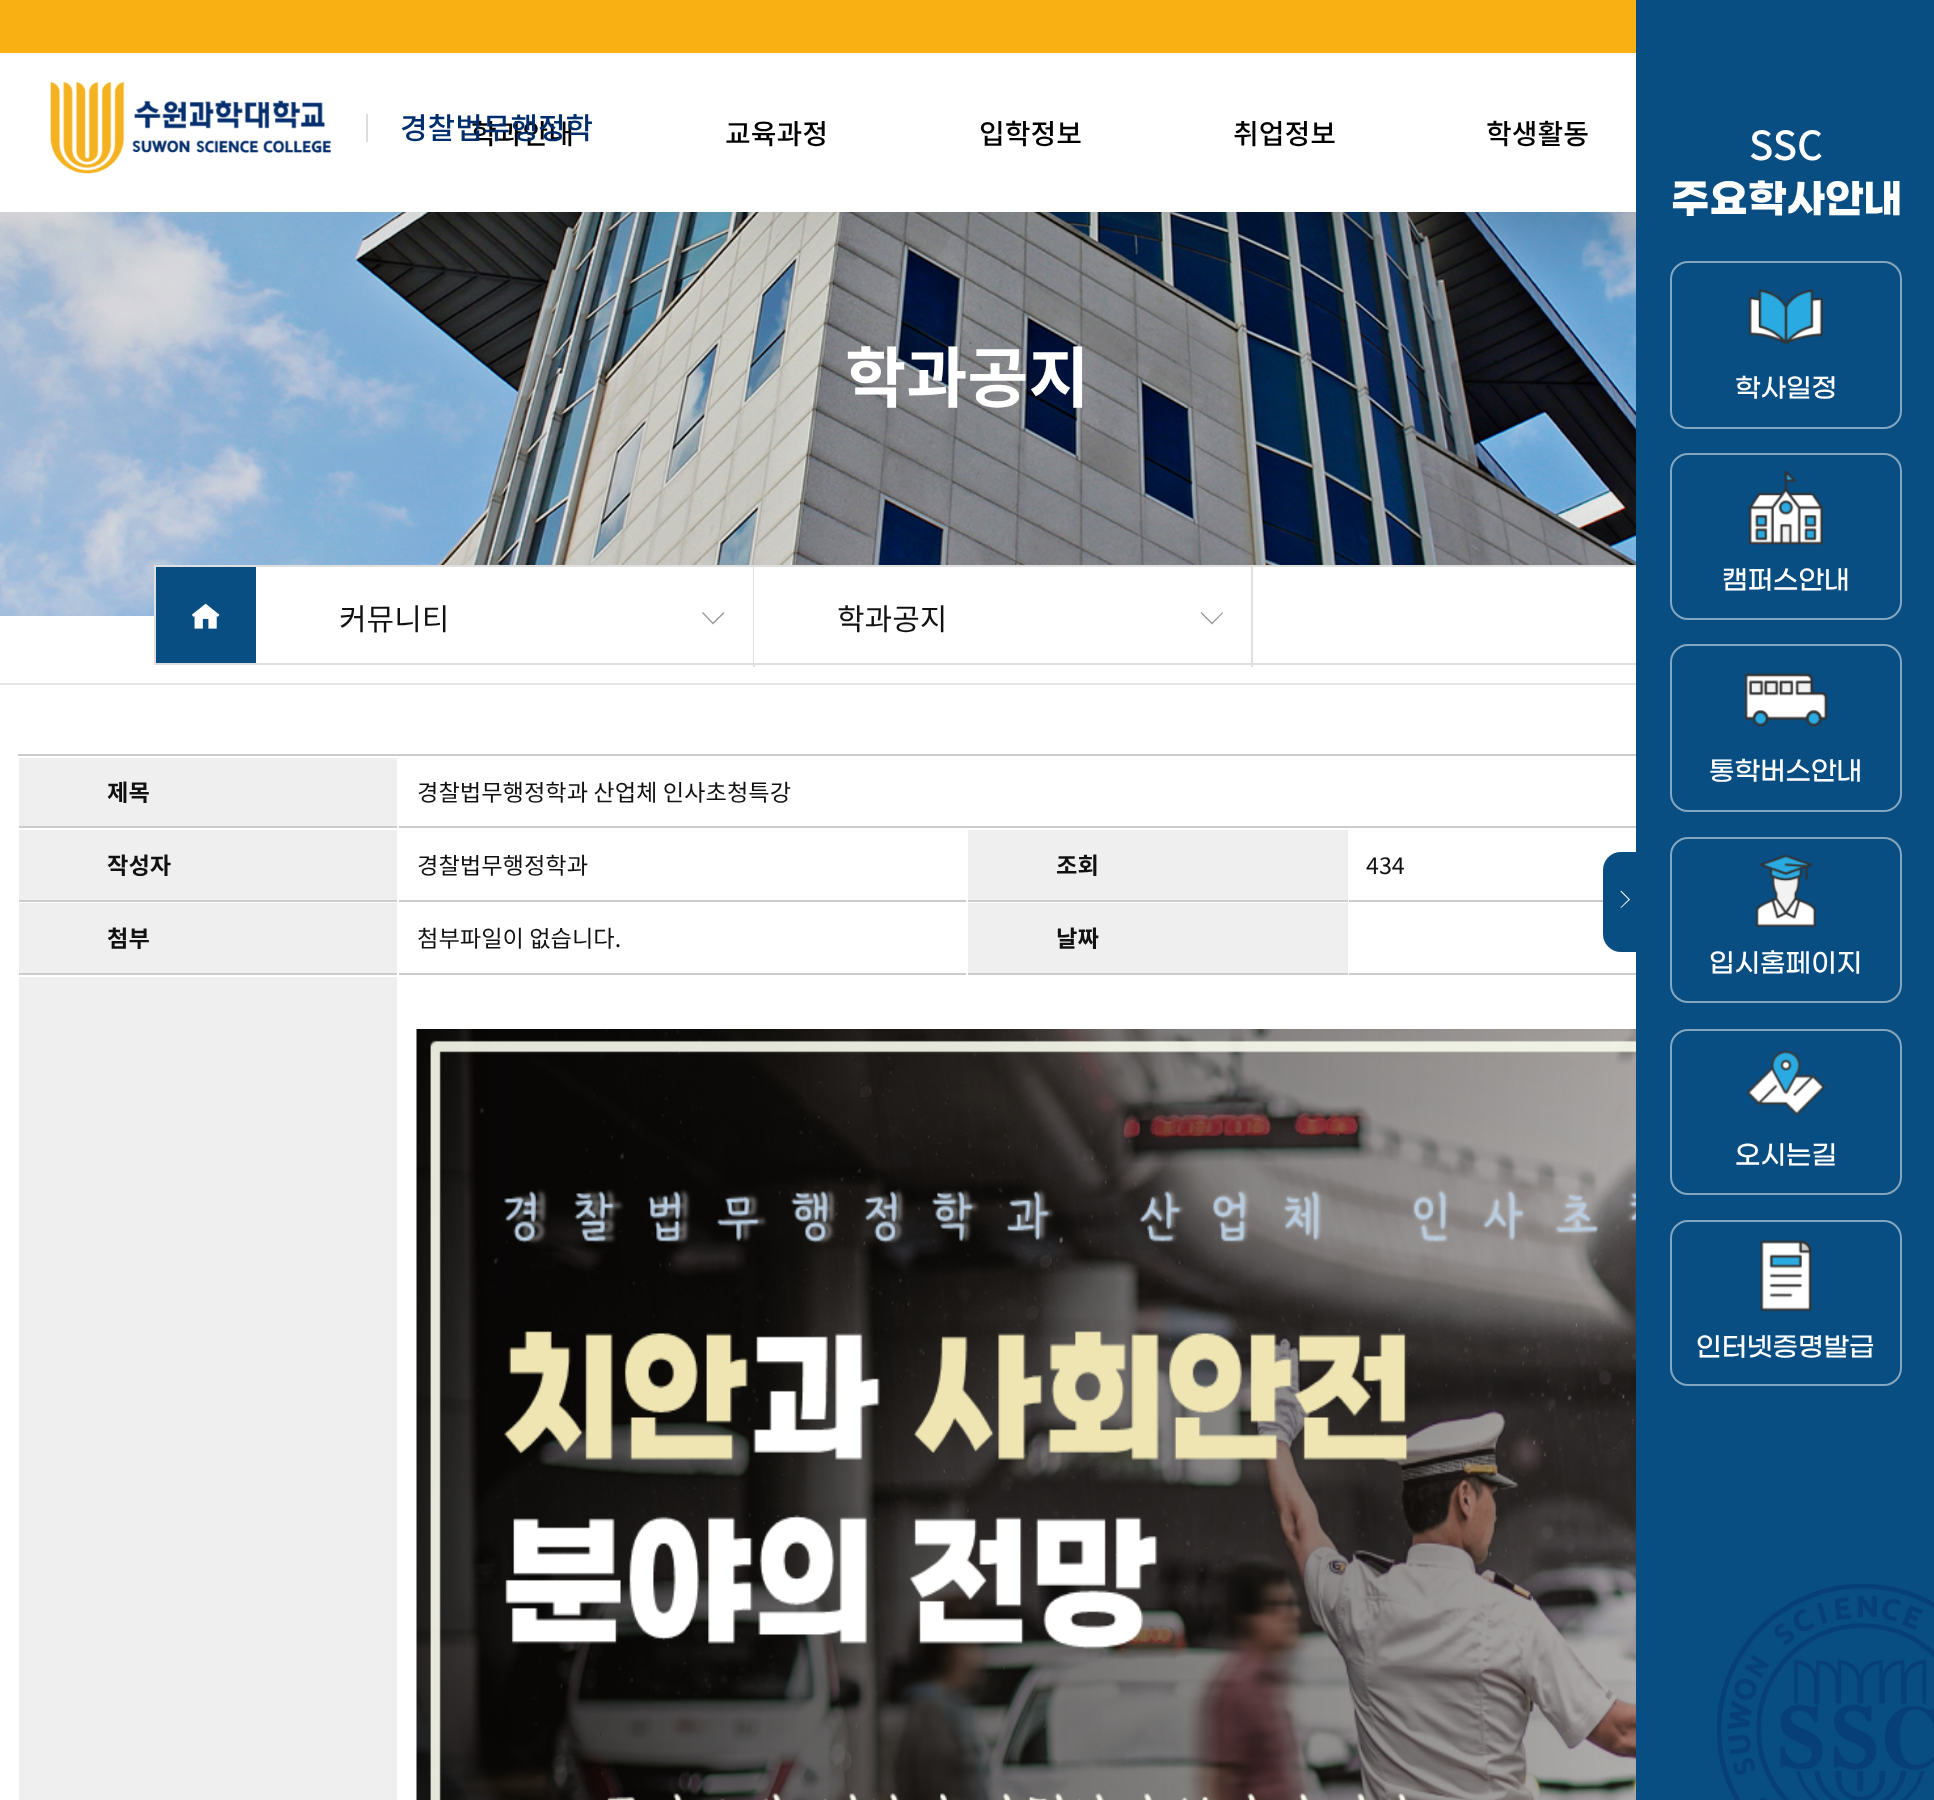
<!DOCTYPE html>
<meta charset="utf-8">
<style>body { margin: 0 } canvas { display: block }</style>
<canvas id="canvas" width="1934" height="1800"></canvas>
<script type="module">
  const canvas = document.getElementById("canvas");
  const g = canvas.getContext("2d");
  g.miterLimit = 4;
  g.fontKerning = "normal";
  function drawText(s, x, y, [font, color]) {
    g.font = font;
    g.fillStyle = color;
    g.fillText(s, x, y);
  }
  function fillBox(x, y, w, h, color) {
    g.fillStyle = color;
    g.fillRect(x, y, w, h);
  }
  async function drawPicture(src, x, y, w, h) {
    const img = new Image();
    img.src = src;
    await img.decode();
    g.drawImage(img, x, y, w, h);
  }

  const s1 = ["500 28px Noto Sans KR", "#000000"];
  const s2 = ["500 30px Noto Sans KR", "#002E6C"];
  const s3 = ["500 40px Noto Sans KR", "#FFFFFF"];
  const s4 = ["bold 40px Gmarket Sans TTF", "#FFFFFF"];
  const s5 = ["500 26.5px Gmarket Sans TTF", "#FFFFFF"];
  const s6 = ["bold 66.5px Noto Sans KR", "#FFFFFF"];
  const s7 = ["30px Noto Sans KR", "#111111"];
  const s8 = ["bold 23.25px Noto Sans KR", "#111111"];
  const s9 = ["23.25px Noto Sans KR", "#111111"];

  fillBox(0, 0, 1934, 1800, "#FFFFFF");
  fillBox(0, 0, 1636, 53, "#F9B013");
  await drawPicture("pic1.png", 50, 82, 281, 92);
  fillBox(366, 114, 2, 28, "#DDDDDD");
  drawText("학과안내", 471, 144, s1);
  drawText("경찰법무행정학", 400, 139, s2);
  drawText("교육과정", 725, 144, s1);
  drawText("입학정보", 979, 144, s1);
  drawText("취업정보", 1233, 144, s1);
  drawText("학생활동", 1486, 144, s1);
  await drawPicture("pic9.png", 0, 212, 1636, 404);
  fillBox(256, 567, 1380, 49, "#FFFFFF");
  g.strokeStyle = "#DFDFDF";
  g.lineWidth = 2;
  g.strokeRect(155, 566, 1626, 98);
  fillBox(1636, 0, 298, 1800, "#094E83");
  await drawPicture("pic2.png", 1717, 1584, 217, 216);
  drawText("SSC", 1749, 160, s3);
  drawText("주요학사안내", 1671, 211, s4);
  g.fillStyle = "#094E83";
  g.beginPath();
  g.roundRect(1603, 852, 33, 100, [18, 0, 0, 18]);
  g.fill();
  g.fillStyle = "#FFFFFF";
  g.beginPath();
  g.moveTo(1620.5, 907.5);
  g.lineTo(1621, 908);
  g.lineTo(1630, 899.5);
  g.lineTo(1621, 890.5);
  g.lineTo(1620.5, 891.5);
  g.lineTo(1628.5, 899.5);
  g.closePath();
  g.fill();
  g.beginPath();
  g.roundRect(1671, 262, 230, 166, 17);
  g.strokeStyle = "#84A7C1";
  g.stroke();
  await drawPicture("pic3.png", 1748, 289, 75, 56);
  drawText("학사일정", 1735, 396, s5);
  g.beginPath();
  g.roundRect(1671, 454, 230, 165, 17);
  g.stroke();
  await drawPicture("pic4.png", 1748, 470, 75, 75);
  drawText("캠퍼스안내", 1722, 588, s5);
  g.beginPath();
  g.roundRect(1671, 645, 230, 166, 17);
  g.stroke();
  await drawPicture("pic5.png", 1745, 673, 83, 54);
  drawText("통학버스안내", 1709, 779, s5);
  g.beginPath();
  g.roundRect(1671, 838, 230, 164, 17);
  g.stroke();
  await drawPicture("pic6.png", 1755, 854, 61, 74);
  drawText("입시홈페이지", 1709, 971, s5);
  g.beginPath();
  g.roundRect(1671, 1030, 230, 164, 17);
  g.stroke();
  await drawPicture("pic7.png", 1746, 1050, 80, 66);
  drawText("오시는길", 1735, 1163, s5);
  g.beginPath();
  g.roundRect(1671, 1221, 230, 164, 17);
  g.stroke();
  await drawPicture("pic8.png", 1760, 1240, 52, 72);
  drawText("인터넷증명발급", 1696, 1355, s5);
  drawText("학과공지", 845, 402, s6);
  fillBox(156, 567, 100, 96, "#094E83");
  await drawPicture("pic10.png", 191, 603, 29, 26);
  fillBox(753, 567, 2, 100, "#DFDFDF");
  drawText("커뮤니티", 339, 630, s7);
  g.fillStyle = "#999999";
  g.beginPath();
  g.moveTo(723.5, 612);
  g.lineTo(724.5, 613);
  g.lineTo(713, 624.5);
  g.lineTo(702, 613);
  g.lineTo(703, 612);
  g.lineTo(713, 622.5);
  g.closePath();
  g.fill();
  fillBox(754, 567, 1, 96, "#FFFFFF");
  fillBox(1251, 567, 2, 100, "#DFDFDF");
  drawText("학과공지", 837, 630, s7);
  g.fillStyle = "#999999";
  g.beginPath();
  g.moveTo(1222.5, 612);
  g.lineTo(1223, 613);
  g.lineTo(1212, 624.5);
  g.lineTo(1200.5, 613);
  g.lineTo(1201.5, 612);
  g.lineTo(1212, 622.5);
  g.closePath();
  g.fill();
  fillBox(0, 683, 1636, 2, "#E6E6E6");
  fillBox(18, 754, 1618, 2, "#CCCCCC");
  fillBox(19, 758, 378, 68, "#EFEFEF");
  fillBox(19, 826, 378, 2, "#CCCCCC");
  drawText("제목", 107, 801, s8);
  fillBox(399, 826, 1237, 2, "#CCCCCC");
  drawText("경찰법무행정학과 산업체 인사초청특강", 417, 801, s9);
  fillBox(19, 830, 378, 70, "#EFEFEF");
  fillBox(19, 900, 378, 2, "#CCCCCC");
  drawText("작성자", 107, 874, s8);
  fillBox(399, 900, 567, 2, "#CCCCCC");
  drawText("경찰법무행정학과", 417, 874, s9);
  fillBox(968, 830, 380, 70, "#EFEFEF");
  fillBox(968, 900, 380, 2, "#CCCCCC");
  drawText("조회", 1056, 874, s8);
  fillBox(1349, 900, 254, 2, "#CCCCCC");
  drawText("434", 1366, 874, s9);
  fillBox(19, 903, 378, 70, "#EFEFEF");
  fillBox(19, 973, 378, 2, "#CCCCCC");
  drawText("첨부", 107, 947, s8);
  fillBox(399, 973, 567, 2, "#CCCCCC");
  drawText("첨부파일이 없습니다.", 417, 947, s9);
  fillBox(968, 903, 380, 70, "#EFEFEF");
  fillBox(968, 973, 380, 2, "#CCCCCC");
  drawText("날짜", 1056, 947, s8);
  fillBox(1349, 973, 287, 2, "#CCCCCC");
  fillBox(19, 977, 378, 823, "#EFEFEF");
  await drawPicture("pic11.png", 416, 1029, 1220, 771);
</script>
